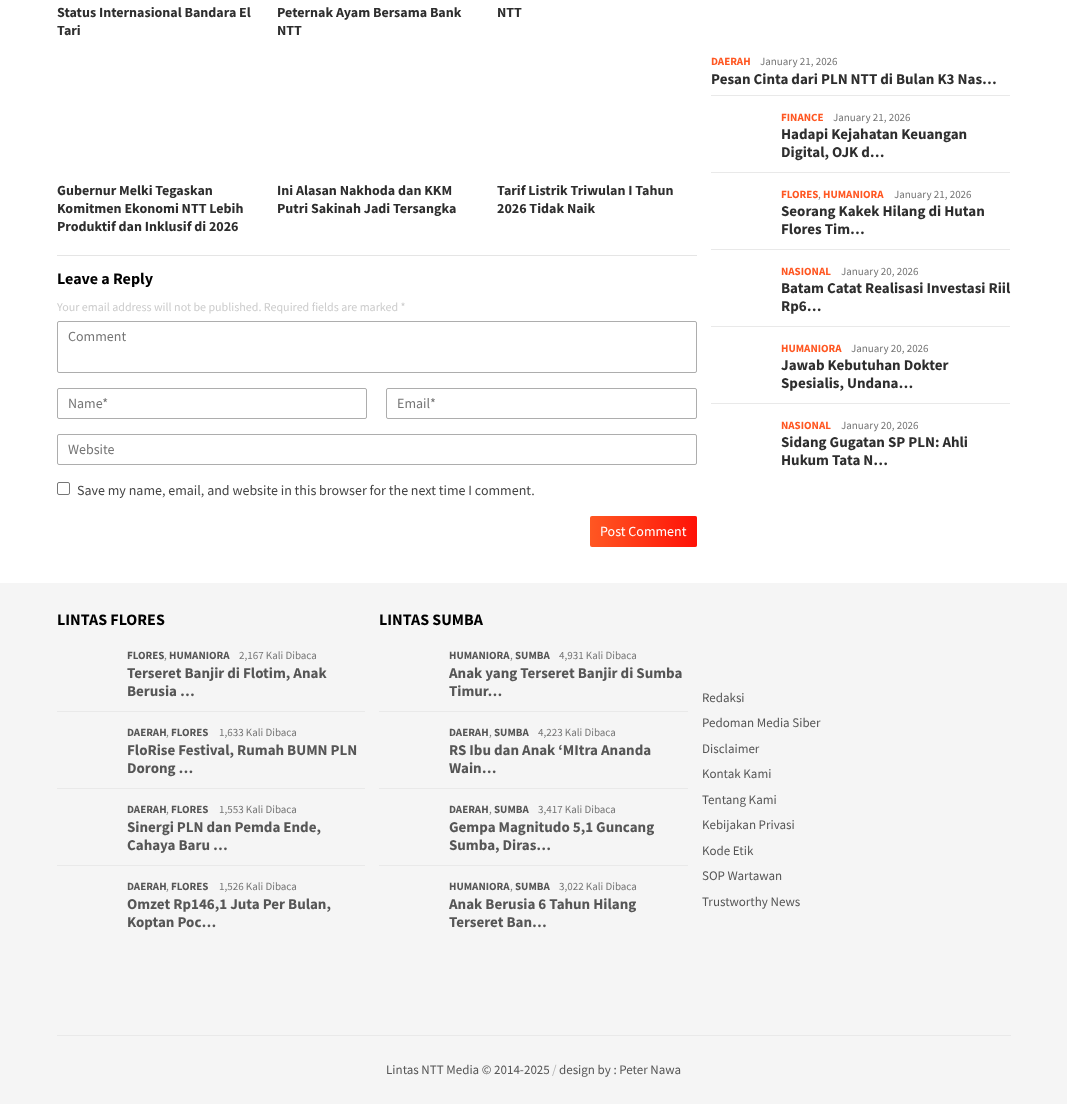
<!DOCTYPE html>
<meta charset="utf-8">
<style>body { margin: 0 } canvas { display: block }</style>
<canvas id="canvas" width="1067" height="1104"></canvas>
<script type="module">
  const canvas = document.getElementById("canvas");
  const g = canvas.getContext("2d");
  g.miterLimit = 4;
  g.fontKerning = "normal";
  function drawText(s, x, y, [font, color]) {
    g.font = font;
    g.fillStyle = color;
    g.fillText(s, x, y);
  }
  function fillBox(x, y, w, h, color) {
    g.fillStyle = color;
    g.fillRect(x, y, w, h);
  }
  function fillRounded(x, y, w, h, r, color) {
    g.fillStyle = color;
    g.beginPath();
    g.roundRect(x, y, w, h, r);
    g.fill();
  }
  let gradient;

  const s1 = ["bold 14px Source Sans Pro", "#2E2E2E"];
  const s2 = ["bold 16px Source Sans Pro", "#000000"];
  const s3 = ["12px Source Sans Pro", "#CCCCCC"];
  const s4 = ["14px Source Sans Pro", "#757575"];
  const s5 = ["14px Source Sans Pro", "#444444"];
  const s6 = ["14px Source Sans Pro", "#FFFFFF"];
  const s7 = ["bold 11px Source Sans Pro", "#FF5722"];
  const s8 = ["11px Source Sans Pro", "#757575"];
  const s9 = ["bold 15px Source Sans Pro", "#2E2E2E"];
  const s10 = ["bold 11px Source Sans Pro", "#565656"];
  const s11 = ["bold 15px Source Sans Pro", "#565656"];
  const s12 = ["13px Source Sans Pro", "#565656"];
  const s13 = ["13px Source Sans Pro", "#B4B4B4"];

  fillBox(0, 0, 1067, 1104, "#F5F5F5");
  fillBox(0, 0, 1067, 583, "#FFFFFF");
  fillBox(57, 255, 640, 1, "#E5E5E5");
  drawText("Status Internasional Bandara El", 57, 17, s1);
  drawText("Tari", 57, 35, s1);
  drawText("Peternak Ayam Bersama Bank", 277, 17, s1);
  drawText("NTT", 277, 35, s1);
  drawText("NTT", 497, 17, s1);
  drawText("Gubernur Melki Tegaskan", 57, 195, s1);
  drawText("Komitmen Ekonomi NTT Lebih", 57, 213, s1);
  drawText("Produktif dan Inklusif di 2026", 57, 231, s1);
  drawText("Ini Alasan Nakhoda dan KKM", 277, 195, s1);
  drawText("Putri Sakinah Jadi Tersangka", 277, 213, s1);
  drawText("Tarif Listrik Triwulan I Tahun", 497, 195, s1);
  drawText("2026 Tidak Naik", 497, 213, s1);
  drawText("Leave a Reply", 57, 284, s2);
  drawText("Your email address will not be published. Required fields are marked *", 57, 311, s3);
  g.beginPath();
  g.roundRect(57.5, 321.5, 639, 51, 1.5);
  g.strokeStyle = "#ADADAD";
  g.stroke();
  drawText("Comment", 68, 341, s4);
  g.beginPath();
  g.roundRect(57.5, 388.5, 309, 30, 1.5);
  g.stroke();
  drawText("Name*", 68, 408, s4);
  g.beginPath();
  g.roundRect(386.5, 388.5, 310, 30, 1.5);
  g.stroke();
  drawText("Email*", 397, 408, s4);
  g.beginPath();
  g.roundRect(57.5, 434.5, 639, 30, 1.5);
  g.stroke();
  drawText("Website", 68, 454, s4);
  g.beginPath();
  g.roundRect(57.5, 482.5, 12, 12, 1.5);
  g.strokeStyle = "#767676";
  g.stroke();
  drawText("Save my name, email, and website in this browser for the next time I comment.", 77, 495, s5);
  fillRounded(590, 516, 107, 31, 2, "#FF5722");
  gradient = g.createLinearGradient(590, 532, 697, 532);
  gradient.addColorStop(0, "rgba(255, 0, 0, 0)");
  gradient.addColorStop(1, "rgba(255, 0, 0, 0.8)");
  g.fillStyle = gradient;
  g.beginPath();
  g.roundRect(590, 516, 107, 31, 2);
  g.fill();
  drawText("Post Comment", 600, 536, s6);
  fillBox(711, 95, 299, 1, "#E9E9E9");
  drawText("DAERAH", 711, 65, s7);
  drawText("January 21, 2026", 760, 65, s8);
  drawText("Pesan Cinta dari PLN NTT di Bulan K3 Nas…", 711, 84, s9);
  fillBox(711, 172, 299, 1, "#E9E9E9");
  drawText("FINANCE", 781, 121, s7);
  drawText("January 21, 2026", 833, 121, s8);
  drawText("Hadapi Kejahatan Keuangan", 781, 139, s9);
  drawText("Digital, OJK d…", 781, 157, s9);
  fillBox(711, 249, 299, 1, "#E9E9E9");
  drawText("FLORES", 781, 198, s7);
  drawText(",", 818, 198, s8);
  drawText("HUMANIORA", 823, 198, s7);
  drawText("January 21, 2026", 894, 198, s8);
  drawText("Seorang Kakek Hilang di Hutan", 781, 216, s9);
  drawText("Flores Tim…", 781, 234, s9);
  fillBox(711, 326, 299, 1, "#E9E9E9");
  drawText("NASIONAL", 781, 275, s7);
  drawText("January 20, 2026", 841, 275, s8);
  drawText("Batam Catat Realisasi Investasi Riil", 781, 293, s9);
  drawText("Rp6…", 781, 311, s9);
  fillBox(711, 403, 299, 1, "#E9E9E9");
  drawText("HUMANIORA", 781, 352, s7);
  drawText("January 20, 2026", 851, 352, s8);
  drawText("Jawab Kebutuhan Dokter", 781, 370, s9);
  drawText("Spesialis, Undana…", 781, 388, s9);
  drawText("NASIONAL", 781, 429, s7);
  drawText("January 20, 2026", 841, 429, s8);
  drawText("Sidang Gugatan SP PLN: Ahli", 781, 447, s9);
  drawText("Hukum Tata N…", 781, 465, s9);
  drawText("LINTAS FLORES", 57, 625, s2);
  fillBox(57, 711, 308, 1, "#E9E9E9");
  drawText("FLORES", 127, 659, s10);
  drawText(",", 164, 659, s8);
  drawText("HUMANIORA", 169, 659, s10);
  drawText("2,167 Kali Dibaca", 239, 659, s8);
  drawText("Terseret Banjir di Flotim, Anak", 127, 678, s11);
  drawText("Berusia …", 127, 696, s11);
  fillBox(57, 788, 308, 1, "#E9E9E9");
  drawText("DAERAH", 127, 736, s10);
  drawText(",", 166, 736, s8);
  drawText("FLORES", 171, 736, s10);
  drawText("1,633 Kali Dibaca", 219, 736, s8);
  drawText("FloRise Festival, Rumah BUMN PLN", 127, 755, s11);
  drawText("Dorong …", 127, 773, s11);
  fillBox(57, 865, 308, 1, "#E9E9E9");
  drawText("DAERAH", 127, 813, s10);
  drawText(",", 166, 813, s8);
  drawText("FLORES", 171, 813, s10);
  drawText("1,553 Kali Dibaca", 219, 813, s8);
  drawText("Sinergi PLN dan Pemda Ende,", 127, 832, s11);
  drawText("Cahaya Baru …", 127, 850, s11);
  drawText("DAERAH", 127, 890, s10);
  drawText(",", 166, 890, s8);
  drawText("FLORES", 171, 890, s10);
  drawText("1,526 Kali Dibaca", 219, 890, s8);
  drawText("Omzet Rp146,1 Juta Per Bulan,", 127, 909, s11);
  drawText("Koptan Poc…", 127, 927, s11);
  drawText("LINTAS SUMBA", 379, 625, s2);
  fillBox(379, 711, 309, 1, "#E9E9E9");
  drawText("HUMANIORA", 449, 659, s10);
  drawText(",", 510, 659, s8);
  drawText("SUMBA", 515, 659, s10);
  drawText("4,931 Kali Dibaca", 559, 659, s8);
  drawText("Anak yang Terseret Banjir di Sumba", 449, 678, s11);
  drawText("Timur…", 449, 696, s11);
  fillBox(379, 788, 309, 1, "#E9E9E9");
  drawText("DAERAH", 449, 736, s10);
  drawText(",", 489, 736, s8);
  drawText("SUMBA", 494, 736, s10);
  drawText("4,223 Kali Dibaca", 538, 736, s8);
  drawText("RS Ibu dan Anak ‘MItra Ananda", 449, 755, s11);
  drawText("Wain…", 449, 773, s11);
  fillBox(379, 865, 309, 1, "#E9E9E9");
  drawText("DAERAH", 449, 813, s10);
  drawText(",", 489, 813, s8);
  drawText("SUMBA", 494, 813, s10);
  drawText("3,417 Kali Dibaca", 538, 813, s8);
  drawText("Gempa Magnitudo 5,1 Guncang", 449, 832, s11);
  drawText("Sumba, Diras…", 449, 850, s11);
  drawText("HUMANIORA", 449, 890, s10);
  drawText(",", 510, 890, s8);
  drawText("SUMBA", 515, 890, s10);
  drawText("3,022 Kali Dibaca", 559, 890, s8);
  drawText("Anak Berusia 6 Tahun Hilang", 449, 909, s11);
  drawText("Terseret Ban…", 449, 927, s11);
  drawText("Redaksi", 702, 702, s12);
  drawText("Pedoman Media Siber", 702, 727, s12);
  drawText("Disclaimer", 702, 753, s12);
  drawText("Kontak Kami", 702, 778, s12);
  drawText("Tentang Kami", 702, 804, s12);
  drawText("Kebijakan Privasi", 702, 829, s12);
  drawText("Kode Etik", 702, 855, s12);
  drawText("SOP Wartawan", 702, 880, s12);
  drawText("Trustworthy News", 702, 906, s12);
  fillBox(57, 1035, 954, 1, "#E9E9E9");
  drawText("Lintas NTT Media © 2014-2025", 386, 1074, s12);
  drawText("/", 552, 1074, s13);
  drawText("design by : Peter Nawa", 559, 1074, s12);
</script>
